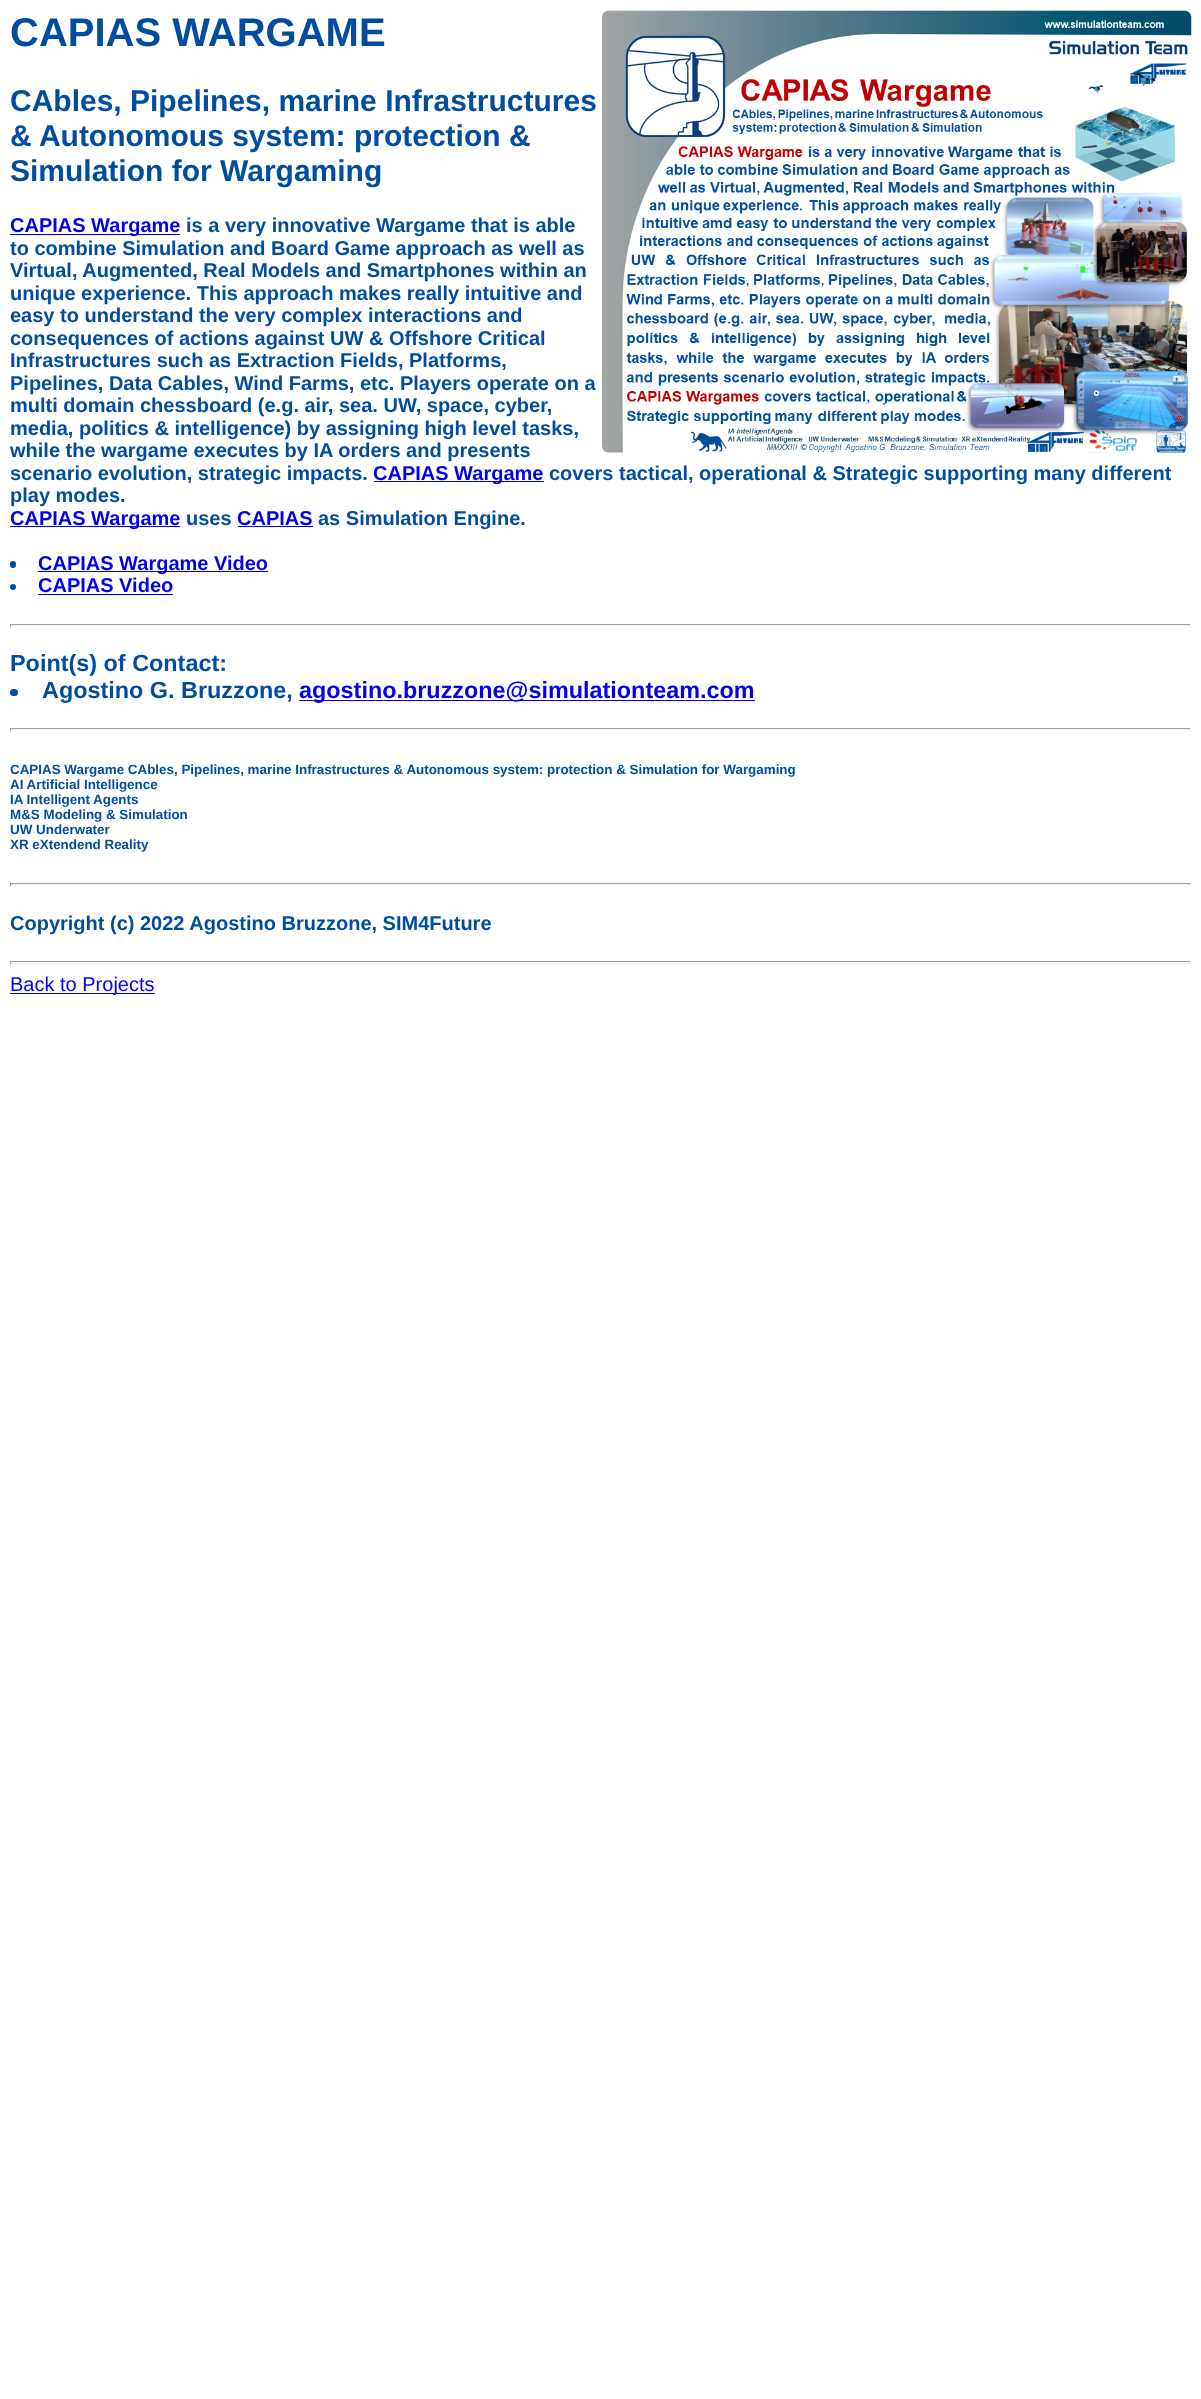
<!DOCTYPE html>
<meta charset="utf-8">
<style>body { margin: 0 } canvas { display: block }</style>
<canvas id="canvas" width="1201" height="2399"></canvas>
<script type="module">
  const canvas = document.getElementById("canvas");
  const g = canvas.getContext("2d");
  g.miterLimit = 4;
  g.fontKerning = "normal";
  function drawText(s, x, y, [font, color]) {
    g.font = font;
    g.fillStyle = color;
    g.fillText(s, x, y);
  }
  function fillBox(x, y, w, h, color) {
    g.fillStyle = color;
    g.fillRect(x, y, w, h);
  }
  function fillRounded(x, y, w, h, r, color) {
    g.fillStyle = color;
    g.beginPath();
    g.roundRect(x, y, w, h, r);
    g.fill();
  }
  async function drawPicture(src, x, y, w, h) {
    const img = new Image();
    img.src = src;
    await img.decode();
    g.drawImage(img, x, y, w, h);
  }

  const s1 = ["bold 40px Liberation Sans", "#004D9F"];
  const s2 = ["bold 30px Liberation Sans", "#004D9F"];
  const s3 = ["bold 20px Liberation Sans", "#0000EE"];
  const s4 = ["bold 20px Liberation Sans", "#004D9F"];
  const s5 = ["bold 23.4px Liberation Sans", "#004D9F"];
  const s6 = ["bold 23.4px Liberation Sans", "#0000EE"];
  const s7 = ["bold 13.4px Liberation Sans", "#004D9F"];
  const s8 = ["20px Liberation Sans", "#0000EE"];

  fillBox(0, 0, 1201, 2399, "#FFFFFF");
  drawText("CAPIAS WARGAME", 10, 46, s1);
  await drawPicture("pic1.png", 602, 10, 590, 443);
  drawText("CAbles, Pipelines, marine Infrastructures", 10, 111, s2);
  drawText("& Autonomous system: protection &", 10, 146, s2);
  drawText("Simulation for Wargaming", 10, 181, s2);
  fillBox(10, 234, 170, 1, "#0000EE");
  drawText("CAPIAS Wargame", 10, 232, s3);
  drawText("is a very innovative Wargame that is able", 186, 232, s4);
  drawText("to combine Simulation and Board Game approach as well as", 10, 255, s4);
  drawText("Virtual, Augmented, Real Models and Smartphones within an", 10, 277, s4);
  drawText("unique experience. This approach makes really intuitive and", 10, 300, s4);
  drawText("easy to understand the very complex interactions and", 10, 322, s4);
  drawText("consequences of actions against UW & Offshore Critical", 10, 345, s4);
  drawText("Infrastructures such as Extraction Fields, Platforms,", 10, 367, s4);
  drawText("Pipelines, Data Cables, Wind Farms, etc. Players operate on a", 10, 390, s4);
  drawText("multi domain chessboard (e.g. air, sea. UW, space, cyber,", 10, 412, s4);
  drawText("media, politics & intelligence) by assigning high level tasks,", 10, 435, s4);
  drawText("while the wargame executes by IA orders and presents", 10, 457, s4);
  drawText("scenario evolution, strategic impacts.", 10, 480, s4);
  fillBox(374, 481, 170, 1, "#0000EE");
  drawText("CAPIAS Wargame", 373, 480, s3);
  drawText("covers tactical, operational & Strategic supporting many different", 549, 480, s4);
  drawText("play modes.", 10, 502, s4);
  fillBox(10, 526, 170, 1, "#0000EE");
  drawText("CAPIAS Wargame", 10, 525, s3);
  drawText("uses", 186, 525, s4);
  drawText("CAPIAS", 237, 525, s3);
  fillBox(238, 526, 75, 1, "#0000EE");
  drawText("as Simulation Engine.", 318, 525, s4);
  fillRounded(10, 561, 6, 7, 3, "#004D9F");
  fillBox(38, 571, 230, 1, "#0000EE");
  drawText("CAPIAS Wargame Video", 38, 570, s3);
  g.fillStyle = "#004D9F";
  g.beginPath();
  g.arc(13, 587, 3, 0, Math.PI * 2);
  g.fill();
  drawText("CAPIAS Video", 38, 592, s3);
  fillBox(38, 594, 135, 1, "#0000EE");
  fillBox(10, 624, 1181, 1, "#9F9F9F");
  fillBox(1190, 624, 1, 3, "#EEEEEE");
  fillBox(10, 625, 1181, 1, "#EEEEEE");
  fillBox(10, 624, 1, 3, "#9F9F9F");
  drawText("Point(s) of Contact:", 10, 671, s5);
  fillRounded(10, 689, 8, 7, 3.5, "#004D9F");
  drawText("Agostino G. Bruzzone,", 42, 698, s5);
  fillBox(299, 700, 456, 1, "#0000EE");
  drawText("agostino.bruzzone@simulationteam.com", 299, 698, s6);
  fillBox(10, 728, 1181, 1, "#9F9F9F");
  fillBox(1190, 728, 1, 3, "#EEEEEE");
  fillBox(10, 729, 1181, 1, "#EEEEEE");
  fillBox(10, 728, 1, 3, "#9F9F9F");
  drawText("CAPIAS Wargame CAbles, Pipelines, marine Infrastructures & Autonomous system: protection & Simulation for Wargaming", 10, 774, s7);
  drawText("AI Artificial Intelligence", 10, 789, s7);
  drawText("IA Intelligent Agents", 10, 804, s7);
  drawText("M&S Modeling & Simulation", 10, 819, s7);
  drawText("UW Underwater", 10, 834, s7);
  drawText("XR eXtendend Reality", 10, 849, s7);
  fillBox(10, 883, 1181, 1, "#9F9F9F");
  fillBox(1190, 883, 1, 3, "#EEEEEE");
  fillBox(10, 884, 1181, 1, "#EEEEEE");
  fillBox(10, 883, 1, 3, "#9F9F9F");
  drawText("Copyright (c) 2022 Agostino Bruzzone, SIM4Future", 10, 930, s4);
  fillBox(10, 961, 1181, 1, "#9F9F9F");
  fillBox(1190, 961, 1, 3, "#EEEEEE");
  fillBox(10, 963, 1181, 1, "#EEEEEE");
  fillBox(10, 961, 1, 3, "#9F9F9F");
  fillBox(10, 993, 145, 1, "#0000EE");
  drawText("Back to Projects", 10, 991, s8);
</script>
